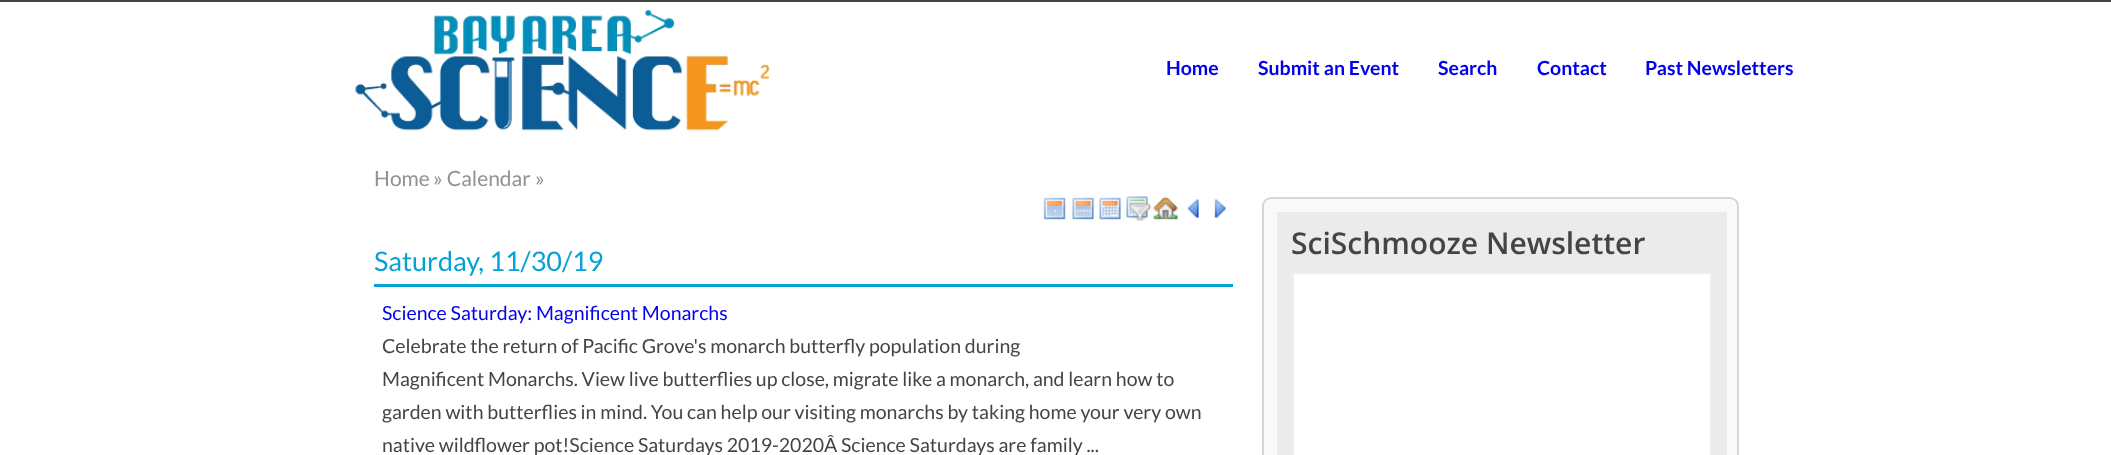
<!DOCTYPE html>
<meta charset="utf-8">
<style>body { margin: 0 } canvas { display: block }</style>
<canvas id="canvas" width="2111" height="455"></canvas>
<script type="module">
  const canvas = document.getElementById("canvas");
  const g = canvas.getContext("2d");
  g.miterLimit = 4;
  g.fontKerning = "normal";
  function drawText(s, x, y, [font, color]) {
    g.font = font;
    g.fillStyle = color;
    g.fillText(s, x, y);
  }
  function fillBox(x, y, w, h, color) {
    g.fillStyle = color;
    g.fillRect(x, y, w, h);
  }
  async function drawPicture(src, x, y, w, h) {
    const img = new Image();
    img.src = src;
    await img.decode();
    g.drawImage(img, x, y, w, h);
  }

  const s1 = ["bold 19.5px Lato", "#0000EE"];
  const s2 = ["21px Lato", "#929292"];
  const s3 = ["600 30px Open Sans", "#444444"];
  const s4 = ["27px Lato", "#06A2D3"];
  const s5 = ["19.5px Lato", "#0000EE"];
  const s6 = ["19.5px Lato", "#444444"];

  fillBox(0, 0, 2111, 455, "#FFFFFF");
  fillBox(0, 0, 2111, 2, "#444444");
  await drawPicture("pic1.png", 355, 9, 415, 122);
  drawText("Home", 1166, 75, s1);
  drawText("Submit an Event", 1258, 75, s1);
  drawText("Search", 1438, 75, s1);
  drawText("Contact", 1537, 75, s1);
  drawText("Past Newsletters", 1645, 75, s1);
  drawText("Home", 374, 186, s2);
  drawText("» Calendar", 433, 186, s2);
  drawText("»", 535, 186, s2);
  g.fillStyle = "#F9F9F9";
  g.beginPath();
  g.roundRect(1263, 198, 475, 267, 8);
  g.fill();
  g.strokeStyle = "#D6D6D6";
  g.lineWidth = 2;
  g.stroke();
  fillBox(1277, 212, 450, 243, "#EBEBEB");
  drawText("SciSchmooze Newsletter", 1291, 254, s3);
  g.fillStyle = "#FFFFFF";
  g.beginPath();
  g.rect(1293, 273, 418, 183);
  g.fill();
  g.strokeStyle = "#EEEEEE";
  g.stroke();
  await drawPicture("pic2.png", 1043, 197, 23, 23);
  await drawPicture("pic3.png", 1072, 197, 22, 23);
  await drawPicture("pic4.png", 1099, 197, 22, 23);
  await drawPicture("pic5.png", 1126, 196, 25, 25);
  await drawPicture("pic6.png", 1153, 196, 25, 24);
  await drawPicture("pic7.png", 1187, 199, 12, 19);
  await drawPicture("pic8.png", 1214, 199, 12, 19);
  fillBox(374, 284, 859, 3, "#06A2D3");
  drawText("Saturday, 11/30/19", 374, 271, s4);
  drawText("Science Saturday: Magnificent Monarchs", 382, 320, s5);
  drawText("Celebrate the return of Pacific Grove's monarch butterfly population during", 382, 353, s6);
  drawText("Magnificent Monarchs. View live butterflies up close, migrate like a monarch, and learn how to", 382, 386, s6);
  drawText("garden with butterflies in mind. You can help our visiting monarchs by taking home your very own", 382, 419, s6);
  drawText("native wildflower pot!Science Saturdays 2019-2020Â Science Saturdays are family ...", 382, 452, s6);
</script>
